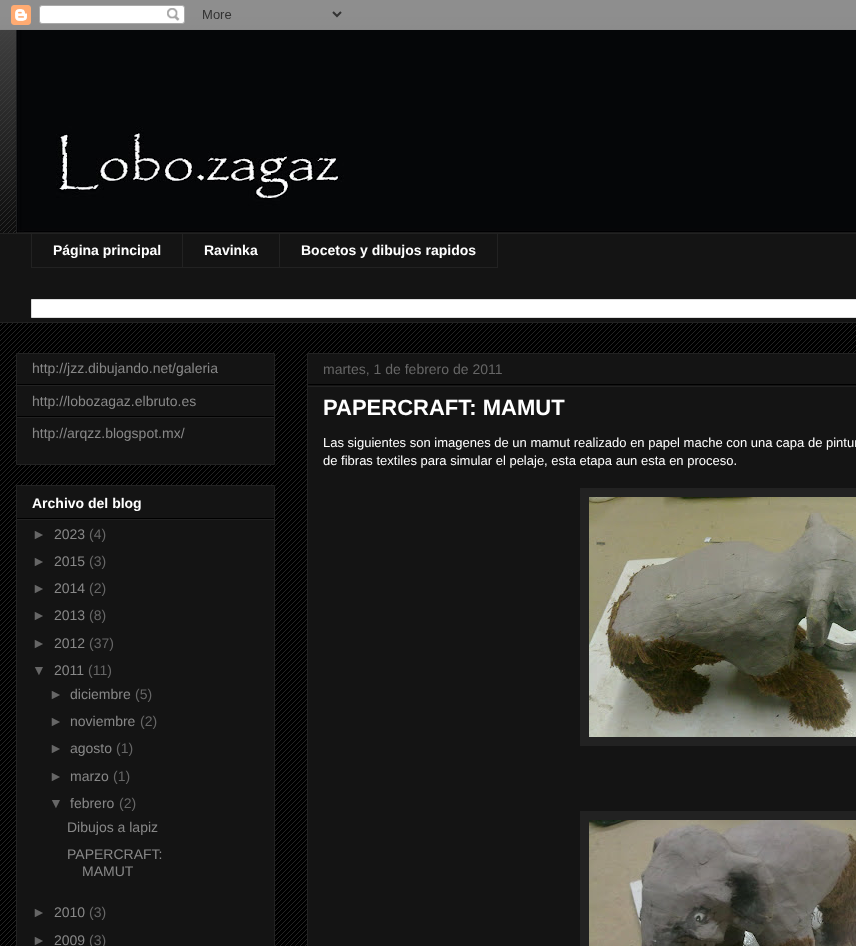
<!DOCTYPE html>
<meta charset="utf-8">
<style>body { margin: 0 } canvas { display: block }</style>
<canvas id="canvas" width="856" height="946"></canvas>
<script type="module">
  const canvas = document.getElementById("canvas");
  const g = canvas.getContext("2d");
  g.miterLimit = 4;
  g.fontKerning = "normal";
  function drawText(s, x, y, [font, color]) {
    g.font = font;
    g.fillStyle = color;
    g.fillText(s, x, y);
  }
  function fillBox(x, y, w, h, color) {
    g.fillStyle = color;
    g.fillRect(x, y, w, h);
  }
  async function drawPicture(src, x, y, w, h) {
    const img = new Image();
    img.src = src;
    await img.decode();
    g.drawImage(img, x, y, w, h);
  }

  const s1 = ["bold 14px Liberation Sans", "#FFFFFF"];
  const s2 = ["14px Liberation Sans", "#888888"];
  const s3 = ["14px Liberation Sans", "#666666"];
  const s4 = ["bold 22px Liberation Sans", "#FFFFFF"];
  const s5 = ["13px Liberation Sans", "#FFFFFF"];

  fillBox(0, 0, 856, 946, "#000000");
  await drawPicture("pic1.png", 0, 13, 856, 933);
  await drawPicture("pic2.png", 0, 0, 856, 233);
  await drawPicture("pic3.png", 0, 0, 856, 30);
  await drawPicture("pic4.png", 16, 30, 840, 203);
  fillBox(0, 234, 856, 88, "#141414");
  fillBox(0, 233, 856, 1, "#222222");
  fillBox(31, 267, 248, 1, "#222222");
  fillBox(31, 233, 1, 35, "#222222");
  drawText("Página principal", 53, 255, s1);
  fillBox(182, 233, 1, 35, "#222222");
  drawText("Ravinka", 204, 255, s1);
  g.strokeStyle = "#222222";
  g.strokeRect(279.5, 233.5, 218, 34);
  drawText("Bocetos y dibujos rapidos", 301, 255, s1);
  g.beginPath();
  g.rect(31.5, 299.5, 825, 18);
  g.fill();
  g.strokeStyle = "#DDDDDD";
  g.stroke();
  fillBox(0, 322, 856, 1, "#222222");
  g.fillStyle = "#141414";
  g.beginPath();
  g.rect(16.5, 353.5, 258, 111);
  g.fill();
  g.strokeStyle = "#222222";
  g.stroke();
  fillBox(17, 384, 257, 1, "#000000");
  drawText("http://jzz.dibujando.net/galeria", 32, 373, s2);
  fillBox(17, 385, 257, 1, "#222222");
  fillBox(17, 416, 257, 1, "#000000");
  drawText("http://lobozagaz.elbruto.es", 32, 406, s2);
  fillBox(17, 417, 257, 1, "#222222");
  drawText("http://arqzz.blogspot.mx/", 32, 438, s2);
  g.fillStyle = "#141414";
  g.beginPath();
  g.rect(16.5, 485.5, 258, 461);
  g.fill();
  g.stroke();
  fillBox(17, 518, 257, 1, "#000000");
  drawText("Archivo del blog", 32, 508, s1);
  fillBox(17, 519, 257, 1, "#222222");
  drawText("►", 32, 539, s3);
  drawText("2023", 54, 539, s2);
  drawText("(4)", 89, 539, s3);
  drawText("►", 32, 566, s3);
  drawText("2015", 54, 566, s2);
  drawText("(3)", 89, 566, s3);
  drawText("►", 32, 593, s3);
  drawText("2014", 54, 593, s2);
  drawText("(2)", 89, 593, s3);
  drawText("►", 32, 620, s3);
  drawText("2013", 54, 620, s2);
  drawText("(8)", 89, 620, s3);
  drawText("►", 32, 648, s3);
  drawText("2012", 54, 648, s2);
  drawText("(37)", 89, 648, s3);
  drawText("▼", 32, 675, s3);
  drawText("2011", 54, 675, s2);
  drawText("(11)", 88, 675, s3);
  drawText("►", 49, 699, s3);
  drawText("diciembre", 70, 699, s2);
  drawText("(5)", 135, 699, s3);
  drawText("►", 49, 726, s3);
  drawText("noviembre", 70, 726, s2);
  drawText("(2)", 140, 726, s3);
  drawText("►", 49, 753, s3);
  drawText("agosto", 70, 753, s2);
  drawText("(1)", 116, 753, s3);
  drawText("►", 49, 781, s3);
  drawText("marzo", 70, 781, s2);
  drawText("(1)", 113, 781, s3);
  drawText("▼", 49, 808, s3);
  drawText("febrero", 70, 808, s2);
  drawText("(2)", 119, 808, s3);
  drawText("Dibujos a lapiz", 67, 832, s2);
  drawText("PAPERCRAFT:", 67, 859, s2);
  drawText("MAMUT", 82, 876, s2);
  drawText("►", 32, 917, s3);
  drawText("2010", 54, 917, s2);
  drawText("(3)", 89, 917, s3);
  drawText("►", 32, 945, s3);
  drawText("2009", 54, 945, s2);
  drawText("(3)", 89, 945, s3);
  g.fillStyle = "#141414";
  g.beginPath();
  g.rect(307.5, 353.5, 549, 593);
  g.fill();
  g.stroke();
  fillBox(308, 384, 548, 1, "#000000");
  drawText("martes, 1 de febrero de 2011", 323, 374, s3);
  fillBox(308, 386, 548, 1, "#222222");
  drawText("PAPERCRAFT: MAMUT", 323, 415, s4);
  drawText("Las siguientes son imagenes de un mamut realizado en papel mache con una capa de pintur", 323, 447, s5);
  drawText("de fibras textiles para simular el pelaje, esta etapa aun esta en proceso.", 323, 465, s5);
  fillBox(580, 488, 276, 258, "#222222");
  await drawPicture("pic5.png", 589, 497, 267, 240);
  fillBox(580, 811, 276, 135, "#222222");
  await drawPicture("pic6.png", 589, 820, 267, 126);
</script>
